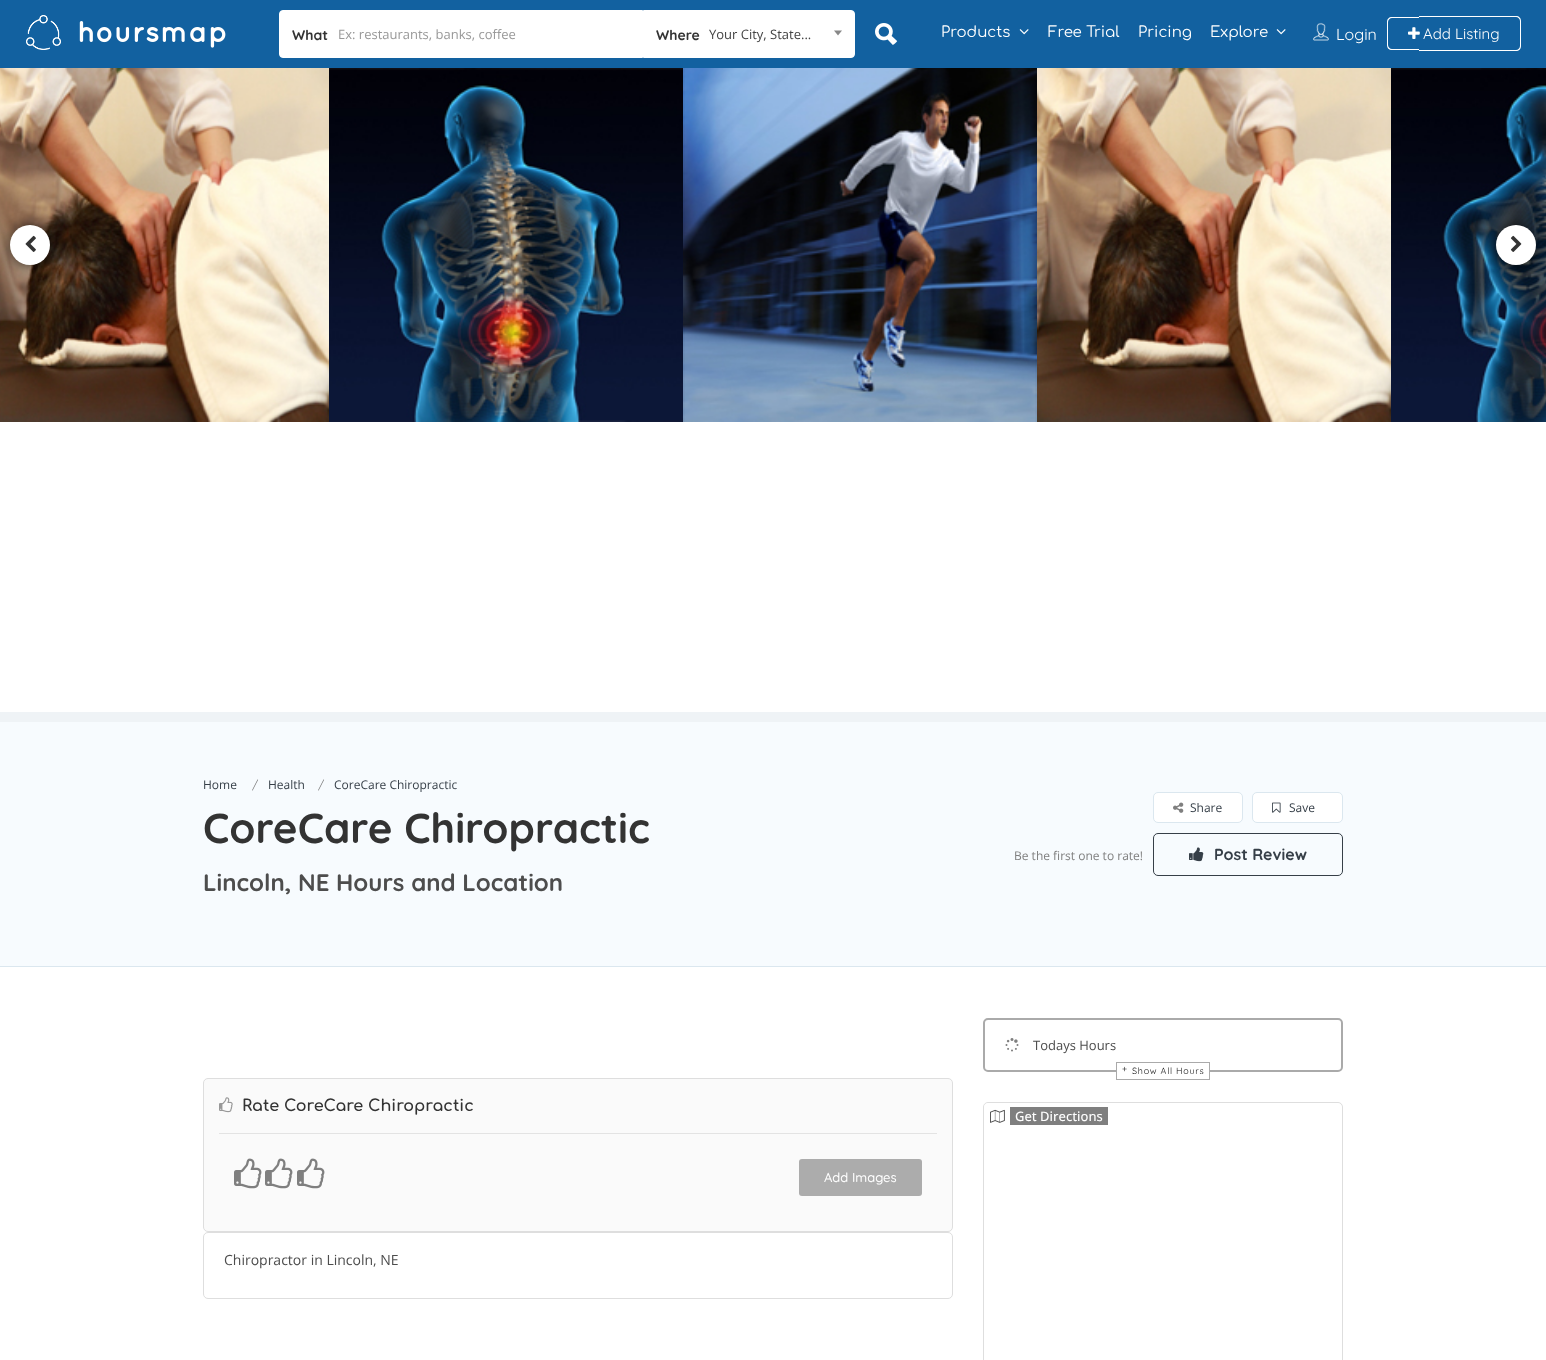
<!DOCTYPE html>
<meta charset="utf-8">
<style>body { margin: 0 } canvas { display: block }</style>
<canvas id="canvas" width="1546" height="1360"></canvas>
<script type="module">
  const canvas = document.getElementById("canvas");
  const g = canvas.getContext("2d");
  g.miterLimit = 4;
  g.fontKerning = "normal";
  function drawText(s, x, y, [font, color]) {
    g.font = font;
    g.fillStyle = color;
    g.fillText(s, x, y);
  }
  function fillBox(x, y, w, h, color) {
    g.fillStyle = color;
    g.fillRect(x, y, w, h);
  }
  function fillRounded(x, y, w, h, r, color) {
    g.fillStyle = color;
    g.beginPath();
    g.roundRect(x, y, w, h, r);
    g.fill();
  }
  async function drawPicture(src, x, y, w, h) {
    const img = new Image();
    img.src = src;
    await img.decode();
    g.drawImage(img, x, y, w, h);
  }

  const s1 = ["bold 14px Quicksand", "#333333"];
  const s2 = ["13px Open Sans", "#999999"];
  const s3 = ["13px Open Sans", "#444444"];
  const s4 = ["15px Comfortaa", "#FFFFFF"];
  const s5 = ["16px Quicksand", "#FFFFFF"];
  const s6 = ["15px Quicksand", "#FFFFFF"];
  const s7 = ["12px Open Sans", "#363F48"];
  const s8 = ["12px Quicksand", "#7F7F7F"];
  const s9 = ["bold 42px Quicksand", "#333333"];
  const s10 = ["bold 24px Quicksand", "#4D4D4D"];
  const s11 = ["12px Open Sans", "#7F7F7F"];
  const s12 = ["bold 16px Quicksand", "#363F48"];
  const s13 = ["13px Open Sans", "#4D4D4D"];
  const s14 = ["9px Quicksand", "#111111"];
  const s15 = ["500 13px Open Sans", "#FFFFFF"];
  const s16 = ["bold 16px Comfortaa", "#333333"];
  const s17 = ["500 13px Quicksand", "#FFFFFF"];
  const s18 = ["14px Open Sans", "#4D4D4D"];

  fillBox(0, 0, 1546, 1360, "#EFF3F6");
  fillBox(0, 0, 1546, 68, "#1261A0");
  await drawPicture("pic1.png", 26, 15, 200, 35);
  g.fillStyle = "#FFFFFF";
  g.beginPath();
  g.roundRect(279.5, 10.5, 363, 47, [3.5, 0, 0, 3.5]);
  g.fill();
  g.strokeStyle = "#FFFFFF";
  g.stroke();
  drawText("What", 292, 40, s1);
  drawText("Ex: restaurants, banks, coffee", 338, 39, s2);
  g.fillStyle = "#FFFFFF";
  g.beginPath();
  g.roundRect(643.5, 10.5, 211, 47, [0, 3.5, 3.5, 0]);
  g.fill();
  g.stroke();
  drawText("Where", 656, 40, s1);
  drawText("Your City, State...", 709, 39, s3);
  g.fillStyle = "#888888";
  g.beginPath();
  g.moveTo(834, 30.5);
  g.lineTo(842, 30.5);
  g.lineTo(838, 35.5);
  g.closePath();
  g.fill();
  await drawPicture("pic2.png", 875, 23, 23, 22);
  drawText("Products", 941, 37, s4);
  await drawPicture("pic3.png", 1019, 29, 10, 6);
  drawText("Free Trial", 1048, 37, s4);
  drawText("Pricing", 1138, 37, s4);
  drawText("Explore", 1210, 37, s4);
  await drawPicture("pic3.png", 1276, 29, 10, 6);
  await drawPicture("pic4.png", 1313, 22, 16, 19);
  drawText("Login", 1336, 40, s5);
  g.beginPath();
  g.moveTo(1392, 17);
  g.lineTo(1419, 17);
  g.lineTo(1419, 50);
  g.lineTo(1392, 50);
  g.bezierCurveTo(1389, 50, 1387, 48, 1387, 45);
  g.lineTo(1387, 22);
  g.bezierCurveTo(1387, 19, 1389, 17, 1392, 17);
  g.closePath();
  g.moveTo(1392, 18);
  g.lineTo(1419, 18);
  g.lineTo(1419, 49);
  g.lineTo(1392, 49);
  g.bezierCurveTo(1390, 49, 1388, 47, 1388, 45);
  g.lineTo(1388, 22);
  g.bezierCurveTo(1388, 20, 1390, 18, 1392, 18);
  g.closePath();
  g.fill("evenodd");
  g.beginPath();
  g.moveTo(1419, 16);
  g.lineTo(1516, 16);
  g.bezierCurveTo(1519, 16, 1521, 18, 1521, 21);
  g.lineTo(1521, 46);
  g.bezierCurveTo(1521, 49, 1519, 51, 1516, 51);
  g.lineTo(1419, 51);
  g.closePath();
  g.moveTo(1419, 17);
  g.lineTo(1516, 17);
  g.bezierCurveTo(1518, 17, 1520, 19, 1520, 21);
  g.lineTo(1520, 46);
  g.bezierCurveTo(1520, 48, 1518, 50, 1516, 50);
  g.lineTo(1419, 50);
  g.closePath();
  g.fill("evenodd");
  await drawPicture("pic5.png", 1408, 27, 12, 12);
  drawText("Add Listing", 1423, 39, s6);
  fillBox(0, 422, 1546, 290, "#FFFFFF");
  await drawPicture("pic6.png", 0, 68, 329, 354);
  await drawPicture("pic7.png", 329, 68, 354, 354);
  await drawPicture("pic8.png", 683, 68, 354, 354);
  await drawPicture("pic9.png", 1037, 68, 354, 354);
  await drawPicture("pic10.png", 1391, 68, 155, 354);
  g.fillStyle = "rgba(0, 0, 0, 0.66)";
  g.filter = "blur(7px)";
  g.beginPath();
  g.roundRect(10, 226, 40, 40, 20);
  g.fill();
  g.filter = "none";
  g.fillStyle = "#FFFFFF";
  g.beginPath();
  g.arc(30, 245, 20, 0, Math.PI * 2);
  g.fill();
  await drawPicture("pic11.png", 25, 235, 11, 17);
  g.fillStyle = "rgba(0, 0, 0, 0.66)";
  g.filter = "blur(7px)";
  g.beginPath();
  g.roundRect(1496, 226, 40, 40, 20);
  g.fill();
  g.filter = "none";
  g.fillStyle = "#FFFFFF";
  g.beginPath();
  g.arc(1516, 245, 20, 0, Math.PI * 2);
  g.fill();
  await drawPicture("pic12.png", 1510, 235, 12, 17);
  fillBox(0, 722, 1546, 244, "#F7FBFE");
  fillBox(0, 966, 1546, 1, "#DBE7EF");
  drawText("Home", 203, 789, s7);
  drawText("/", 252, 789, s8);
  drawText("Health", 268, 789, s7);
  drawText("/", 318, 789, s8);
  drawText("CoreCare Chiropractic", 334, 789, s7);
  drawText("CoreCare Chiropractic", 203, 843, s9);
  drawText("Lincoln, NE Hours and Location", 203, 891, s10);
  g.fillStyle = "#FFFFFF";
  g.beginPath();
  g.roundRect(1153.5, 792.5, 89, 30, 4.5);
  g.fill();
  g.strokeStyle = "#DBE7EF";
  g.stroke();
  await drawPicture("pic13.png", 1173, 802, 11, 11);
  drawText("Share", 1190, 812, s7);
  g.fillStyle = "#FFFFFF";
  g.beginPath();
  g.roundRect(1252.5, 792.5, 90, 30, 4.5);
  g.fill();
  g.stroke();
  await drawPicture("pic14.png", 1272, 802, 9, 11);
  drawText("Save", 1289, 812, s7);
  drawText("Be the first one to rate!", 1014, 860, s11);
  g.beginPath();
  g.roundRect(1153.5, 833.5, 189, 42, 4.5);
  g.strokeStyle = "#363F48";
  g.stroke();
  await drawPicture("pic15.png", 1189, 847, 15, 15);
  drawText("Post Review", 1214, 860, s12);
  fillBox(0, 967, 1546, 393, "#FFFFFF");
  g.beginPath();
  g.roundRect(984, 1019, 358, 52, 4);
  g.strokeStyle = "#AAAAAA";
  g.lineWidth = 2;
  g.stroke();
  await drawPicture("pic16.png", 1005, 1038, 14, 14);
  drawText("Todays Hours", 1033, 1050, s13);
  fillBox(1117, 1070, 92, 2, "#FFFFFF");
  g.lineWidth = 1;
  g.strokeRect(1116.5, 1062.5, 93, 17);
  g.letterSpacing = "0.75px";
  drawText("+", 1122, 1072, s14);
  drawText("Show All Hours", 1132, 1074, s14);
  g.fillStyle = "#FAFAFA";
  g.beginPath();
  g.roundRect(983.5, 1102.5, 359, 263, 4.5);
  g.fill();
  g.strokeStyle = "#DEDEDE";
  g.stroke();
  g.save();
  g.beginPath();
  g.roundRect(984, 1103, 358, 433, 4);
  g.clip();
  fillRounded(984, 1103, 358, 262, 5, "#FFFFFF");
  g.restore();
  g.fillStyle = "rgba(255, 255, 255, 0.5)";
  g.beginPath();
  g.roundRect(984, 1103, 134, 26, [4, 0, 0, 0]);
  g.fill();
  await drawPicture("pic17.png", 990, 1109, 15, 14);
  fillBox(1010, 1107, 98, 18, "#7F7F7F");
  g.letterSpacing = "0px";
  drawText("Get Directions", 1015, 1121, s15);
  g.fillStyle = "#FAFAFA";
  g.beginPath();
  g.roundRect(203.5, 1078.5, 749, 153, 4.5);
  g.fill();
  g.stroke();
  await drawPicture("pic18.png", 219, 1097, 14, 16);
  drawText("Rate CoreCare Chiropractic", 242, 1111, s16);
  fillBox(219, 1133, 718, 1, "#E3E3E3");
  await drawPicture("pic19.png", 234, 1158, 28, 31);
  await drawPicture("pic19.png", 265, 1158, 28, 31);
  await drawPicture("pic19.png", 297, 1158, 28, 31);
  fillRounded(799, 1159, 123, 37, 3, "#ACACAC");
  drawText("Add Images", 824, 1182, s17);
  g.beginPath();
  g.roundRect(203.5, 1232.5, 749, 66, 4.5);
  g.stroke();
  drawText("Chiropractor in Lincoln, NE", 224, 1265, s18);
</script>
